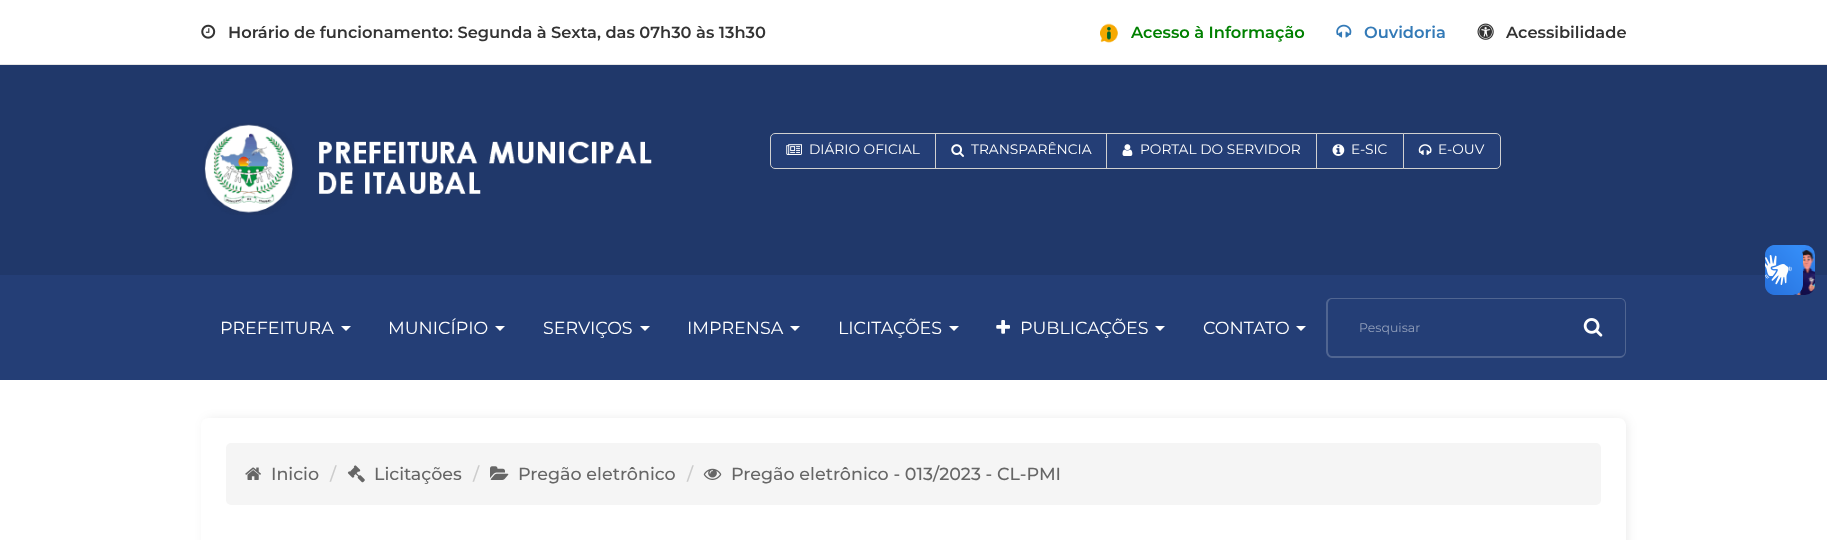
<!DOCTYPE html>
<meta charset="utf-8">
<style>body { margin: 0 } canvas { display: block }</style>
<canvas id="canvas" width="1827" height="540"></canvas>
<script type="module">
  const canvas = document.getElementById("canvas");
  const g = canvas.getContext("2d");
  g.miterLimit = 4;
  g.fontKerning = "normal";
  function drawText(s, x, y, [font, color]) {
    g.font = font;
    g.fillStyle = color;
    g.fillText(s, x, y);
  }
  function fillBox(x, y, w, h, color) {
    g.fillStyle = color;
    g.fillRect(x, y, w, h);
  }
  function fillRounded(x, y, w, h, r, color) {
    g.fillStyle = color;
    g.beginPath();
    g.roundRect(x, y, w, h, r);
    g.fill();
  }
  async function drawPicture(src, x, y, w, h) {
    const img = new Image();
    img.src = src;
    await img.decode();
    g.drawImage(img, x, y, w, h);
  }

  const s1 = ["600 16.25px Montserrat", "#333333"];
  const s2 = ["600 16.25px Montserrat", "#008000"];
  const s3 = ["600 16.25px Montserrat", "#337AB7"];
  const s4 = ["13.75px Montserrat", "#FFFFFF"];
  const s5 = ["17.5px Montserrat", "#FFFFFF"];
  const s6 = ["12.5px Montserrat", "#929FBB"];
  const s7 = ["500 17.5px Montserrat", "#666666"];
  const s8 = ["500 17.5px Montserrat", "#CCCCCC"];

  fillBox(0, 0, 1827, 540, "#FFFFFF");
  fillBox(0, 64, 1827, 1, "#E6E6E6");
  await drawPicture("pic1.png", 201, 24, 15, 15);
  drawText("Horário de funcionamento: Segunda à Sexta, das 07h30 às 13h30", 228, 38, s1);
  await drawPicture("pic2.png", 1100, 23, 18, 20);
  drawText("Acesso à Informação", 1131, 38, s2);
  await drawPicture("pic3.png", 1336, 24, 16, 14);
  drawText("Ouvidoria", 1364, 38, s3);
  await drawPicture("pic4.png", 1477, 23, 17, 17);
  drawText("Acessibilidade", 1506, 38, s1);
  fillBox(0, 65, 1827, 210, "#20386A");
  await drawPicture("pic5.png", 203, 123, 449, 92);
  g.fillStyle = "#243E76";
  g.beginPath();
  g.roundRect(770.5, 133.5, 165, 35, [4.5, 0, 0, 4.5]);
  g.fill();
  g.strokeStyle = "#D0D0D0";
  g.stroke();
  await drawPicture("pic6.png", 786, 144, 16, 11);
  drawText("DIÁRIO OFICIAL", 809, 154, s4);
  fillBox(936, 134, 170, 34, "#243E76");
  g.strokeRect(935.5, 133.5, 172, 35);
  await drawPicture("pic7.png", 951, 144, 13, 13);
  drawText("TRANSPARÊNCIA", 971, 154, s4);
  fillBox(1107, 134, 209, 34, "#243E76");
  g.strokeRect(1106.5, 133.5, 211, 35);
  await drawPicture("pic8.png", 1122, 144, 11, 12);
  drawText("PORTAL DO SERVIDOR", 1140, 154, s4);
  g.fillStyle = "#243E76";
  g.beginPath();
  g.rect(1316.5, 133.5, 87, 35);
  g.fill();
  g.stroke();
  await drawPicture("pic9.png", 1332, 144, 13, 12);
  drawText("E-SIC", 1351, 154, s4);
  g.fillStyle = "#243E76";
  g.beginPath();
  g.roundRect(1403.5, 133.5, 97, 35, [0, 4.5, 4.5, 0]);
  g.fill();
  g.stroke();
  await drawPicture("pic10.png", 1418, 144, 14, 11);
  drawText("E-OUV", 1438, 154, s4);
  fillBox(0, 275, 1827, 105, "#243E76");
  drawText("PREFEITURA", 220, 334, s5);
  g.beginPath();
  g.moveTo(341, 326);
  g.lineTo(351, 326);
  g.lineTo(346, 331);
  g.closePath();
  g.fill();
  drawText("MUNICÍPIO", 388, 334, s5);
  g.beginPath();
  g.moveTo(495, 326);
  g.lineTo(505, 326);
  g.lineTo(500, 331);
  g.closePath();
  g.fill();
  drawText("SERVIÇOS", 543, 334, s5);
  g.beginPath();
  g.moveTo(640, 326);
  g.lineTo(650, 326);
  g.lineTo(645, 331);
  g.closePath();
  g.fill();
  drawText("IMPRENSA", 687, 334, s5);
  g.beginPath();
  g.moveTo(790, 326);
  g.lineTo(800, 326);
  g.lineTo(795, 331);
  g.closePath();
  g.fill();
  drawText("LICITAÇÕES", 838, 334, s5);
  g.beginPath();
  g.moveTo(949, 326);
  g.lineTo(959, 326);
  g.lineTo(954, 331);
  g.closePath();
  g.fill();
  await drawPicture("pic11.png", 996, 320, 14, 14);
  drawText("PUBLICAÇÕES", 1020, 334, s5);
  g.beginPath();
  g.moveTo(1155, 326);
  g.lineTo(1165, 326);
  g.lineTo(1160, 331);
  g.closePath();
  g.fill();
  drawText("CONTATO", 1203, 334, s5);
  g.beginPath();
  g.moveTo(1296, 326);
  g.lineTo(1306, 326);
  g.lineTo(1301, 331);
  g.closePath();
  g.fill();
  g.fillStyle = "#506591";
  g.beginPath();
  g.moveTo(1332, 298);
  g.lineTo(1561, 298);
  g.lineTo(1561, 358);
  g.lineTo(1332, 358);
  g.bezierCurveTo(1329, 358, 1326, 355, 1326, 351);
  g.lineTo(1326, 304);
  g.bezierCurveTo(1326, 300, 1329, 298, 1332, 298);
  g.closePath();
  g.moveTo(1332, 299);
  g.lineTo(1561, 299);
  g.lineTo(1561, 356);
  g.lineTo(1332, 356);
  g.bezierCurveTo(1330, 356, 1328, 354, 1328, 351);
  g.lineTo(1328, 304);
  g.bezierCurveTo(1328, 301, 1330, 299, 1332, 299);
  g.closePath();
  g.fill("evenodd");
  drawText("Pesquisar", 1359, 332, s6);
  g.fillStyle = "#506591";
  g.beginPath();
  g.moveTo(1561, 298);
  g.lineTo(1620, 298);
  g.bezierCurveTo(1623, 298, 1626, 300, 1626, 304);
  g.lineTo(1626, 351);
  g.bezierCurveTo(1626, 355, 1623, 358, 1620, 358);
  g.lineTo(1561, 358);
  g.closePath();
  g.moveTo(1561, 299);
  g.lineTo(1620, 299);
  g.bezierCurveTo(1623, 299, 1625, 301, 1625, 304);
  g.lineTo(1625, 351);
  g.bezierCurveTo(1625, 354, 1623, 356, 1620, 356);
  g.lineTo(1561, 356);
  g.closePath();
  g.fill("evenodd");
  await drawPicture("pic12.png", 1583, 318, 20, 19);
  await drawPicture("pic13.png", 1765, 245, 50, 50);
  await drawPicture("pic14.png", 1765, 245, 38, 50);
  g.save();
  g.beginPath();
  g.moveTo(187, 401);
  g.lineTo(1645, 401);
  g.lineTo(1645, 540);
  g.lineTo(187, 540);
  g.closePath();
  g.moveTo(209, 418);
  g.lineTo(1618, 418);
  g.bezierCurveTo(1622.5, 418, 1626, 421.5, 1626, 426);
  g.lineTo(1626, 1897);
  g.bezierCurveTo(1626, 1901.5, 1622.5, 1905, 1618, 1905);
  g.lineTo(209, 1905);
  g.bezierCurveTo(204.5, 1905, 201, 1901.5, 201, 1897);
  g.lineTo(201, 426);
  g.bezierCurveTo(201, 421.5, 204.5, 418, 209, 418);
  g.closePath();
  g.clip("evenodd");
  g.fillStyle = "rgba(0, 0, 0, 0.1)";
  g.filter = "blur(6px)";
  g.beginPath();
  g.roundRect(206, 420, 1420, 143, 5);
  g.fill();
  g.filter = "none";
  g.restore();
  fillRounded(226, 443, 1375, 62, 5, "#F5F5F5");
  await drawPicture("pic15.png", 245, 467, 16, 13);
  drawText("Inicio", 271, 480, s7);
  drawText("/", 330, 480, s8);
  await drawPicture("pic16.png", 347, 465, 18, 18);
  drawText("Licitações", 374, 480, s7);
  drawText("/", 473, 480, s8);
  await drawPicture("pic17.png", 490, 466, 19, 14);
  drawText("Pregão eletrônico", 518, 480, s7);
  drawText("/", 687, 480, s8);
  await drawPicture("pic18.png", 703, 468, 19, 12);
  drawText("Pregão eletrônico - 013/2023 - CL-PMI", 731, 480, s7);
</script>
